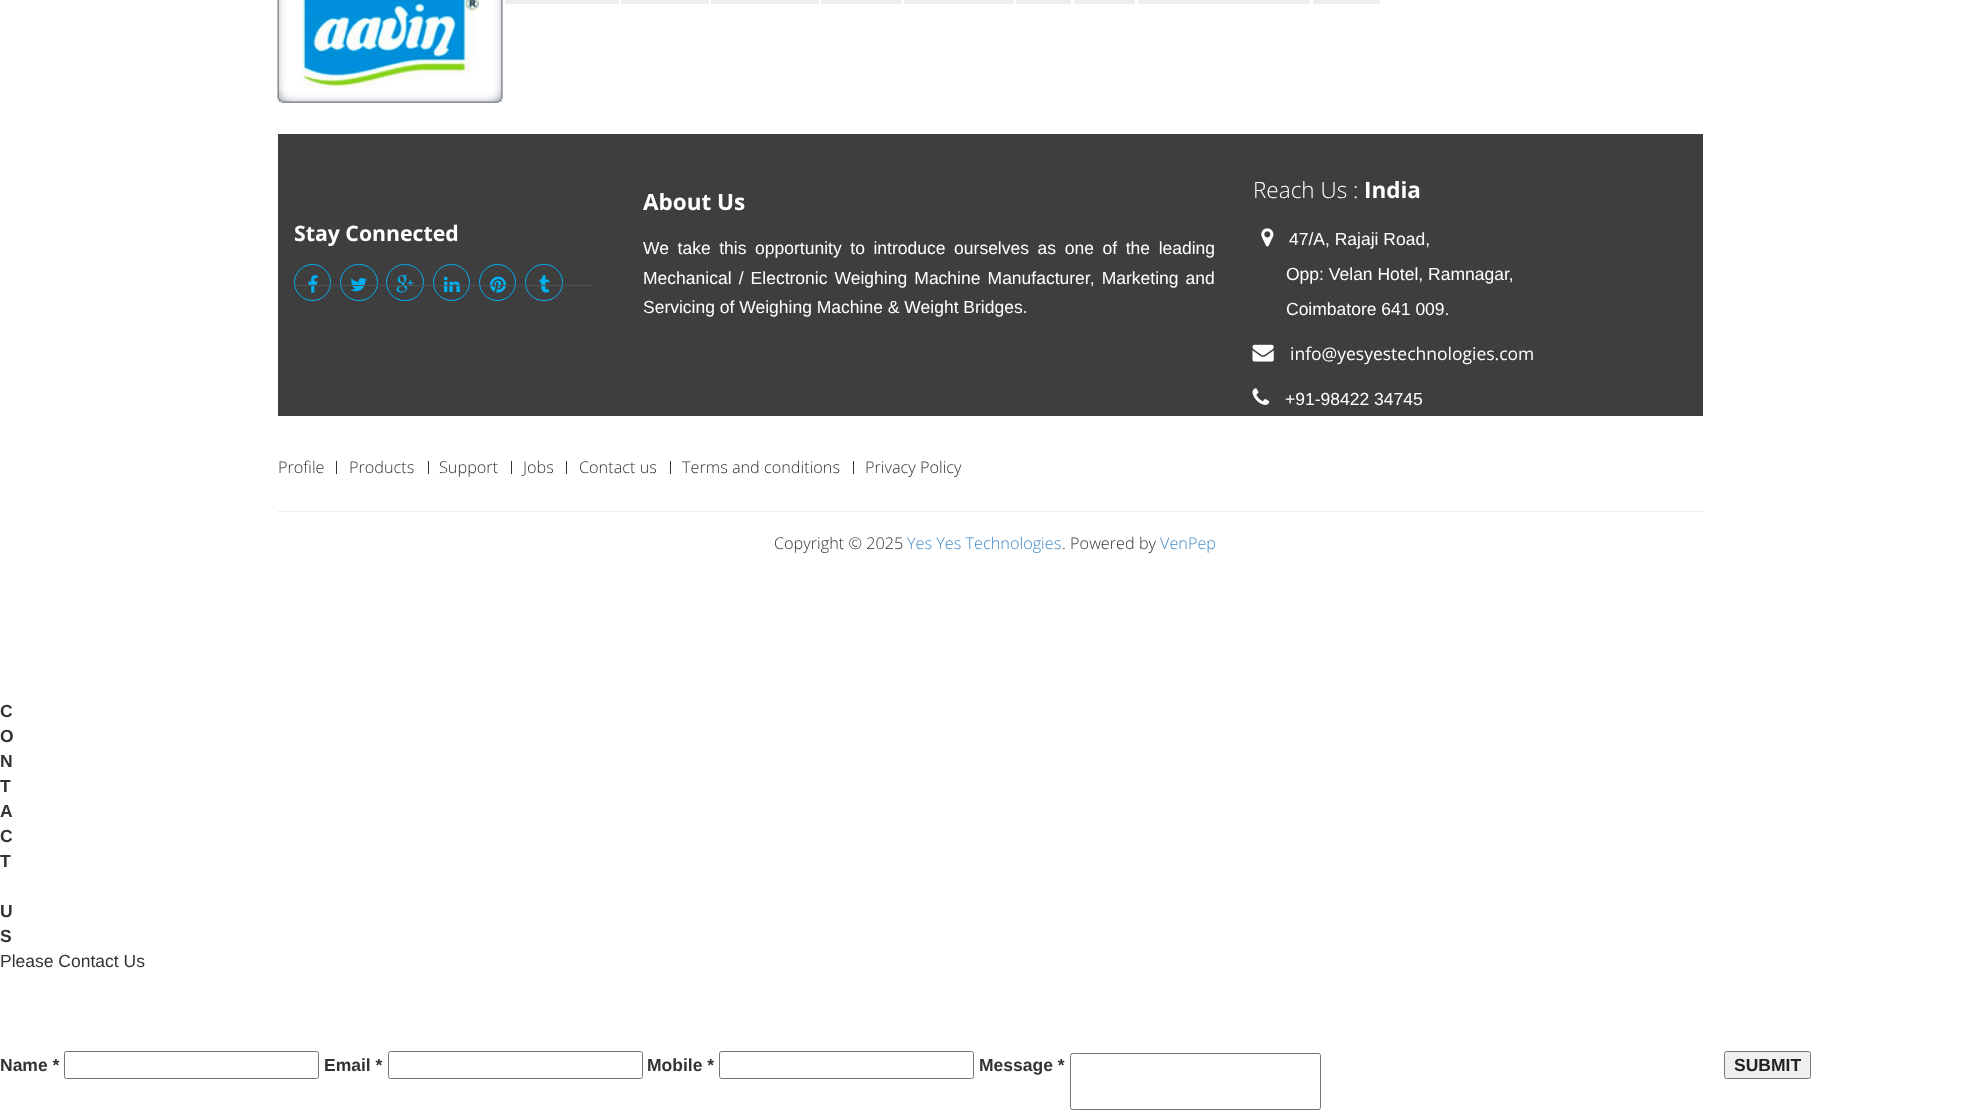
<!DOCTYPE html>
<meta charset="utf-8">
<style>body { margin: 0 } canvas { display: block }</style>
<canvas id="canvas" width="1980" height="1116"></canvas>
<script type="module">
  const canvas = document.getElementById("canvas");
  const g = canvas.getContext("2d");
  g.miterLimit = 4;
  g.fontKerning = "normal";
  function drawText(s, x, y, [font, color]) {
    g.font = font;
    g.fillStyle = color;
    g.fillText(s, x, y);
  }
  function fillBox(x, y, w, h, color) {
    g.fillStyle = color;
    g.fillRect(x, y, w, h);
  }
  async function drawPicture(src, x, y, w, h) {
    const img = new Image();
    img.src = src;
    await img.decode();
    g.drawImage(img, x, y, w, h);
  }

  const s1 = ["bold 21.25px Open Sans", "#FFFFFF"];
  const s2 = ["bold 22.5px Open Sans", "#FFFFFF"];
  const s3 = ["17.5px Liberation Sans", "#FFFFFF"];
  const s4 = ["300 22.5px Open Sans", "#FFFFFF"];
  const s5 = ["17.5px Open Sans", "#FFFFFF"];
  const s6 = ["300 16.25px Open Sans", "#333333"];
  const s7 = ["300 16.25px Open Sans", "#428BCA"];
  const s8 = ["bold 17.5px Liberation Sans", "#333333"];
  const s9 = ["17.5px Liberation Sans", "#333333"];
  const s10 = ["bold 17.5px Liberation Sans", "#222222"];

  fillBox(0, 0, 1980, 1116, "#FFFFFF");
  fillBox(278, 0, 225, 103, "#EEEEEE");
  await drawPicture("pic1.png", 277, 0, 226, 103);
  fillBox(505, 0, 114, 4, "#EEEEEE");
  fillBox(621, 0, 88, 4, "#EEEEEE");
  fillBox(711, 0, 108, 4, "#EEEEEE");
  fillBox(821, 0, 80, 4, "#EEEEEE");
  fillBox(904, 0, 110, 4, "#EEEEEE");
  fillBox(1016, 0, 55, 4, "#EEEEEE");
  fillBox(1074, 0, 61, 4, "#EEEEEE");
  fillBox(1138, 0, 172, 4, "#EEEEEE");
  fillBox(1313, 0, 67, 4, "#EEEEEE");
  fillBox(278, 134, 1425, 282, "#3E3E3E");
  drawText("Stay Connected", 294, 241, s1);
  g.beginPath();
  g.arc(312.5, 282.5, 18, 0, Math.PI * 2);
  g.strokeStyle = "#00AFF0";
  g.stroke();
  await drawPicture("pic2.png", 308, 275, 10, 18);
  g.beginPath();
  g.roundRect(340.5, 264.5, 37, 36, 18);
  g.stroke();
  await drawPicture("pic3.png", 350, 277, 17, 15);
  g.beginPath();
  g.roundRect(386.5, 264.5, 37, 36, 18);
  g.stroke();
  await drawPicture("pic4.png", 396, 275, 18, 18);
  g.beginPath();
  g.arc(451.5, 282.5, 18, 0, Math.PI * 2);
  g.stroke();
  await drawPicture("pic5.png", 443, 276, 17, 17);
  g.beginPath();
  g.arc(497.5, 282.5, 18, 0, Math.PI * 2);
  g.stroke();
  await drawPicture("pic6.png", 490, 276, 17, 17);
  g.beginPath();
  g.roundRect(525.5, 264.5, 37, 36, 18);
  g.stroke();
  await drawPicture("pic7.png", 539, 275, 11, 18);
  fillBox(294, 285, 300, 1, "#525252");
  drawText("About Us", 643, 210, s2);
  g.wordSpacing = "3.75px";
  drawText("We take this opportunity to introduce ourselves as one of the leading", 643, 254, s3);
  g.wordSpacing = "2.25px";
  drawText("Mechanical / Electronic Weighing Machine Manufacturer, Marketing and", 643, 284, s3);
  g.wordSpacing = "0px";
  drawText("Servicing of Weighing Machine & Weight Bridges.", 643, 313, s3);
  drawText("Reach Us :", 1253, 198, s4);
  drawText("India", 1364, 198, s2);
  await drawPicture("pic8.png", 1261, 228, 13, 19);
  drawText("47/A, Rajaji Road,", 1289, 245, s3);
  drawText("Opp: Velan Hotel, Ramnagar,", 1286, 280, s3);
  drawText("Coimbatore 641 009.", 1286, 315, s3);
  await drawPicture("pic9.png", 1252, 344, 22, 18);
  drawText("info@yesyestechnologies.com", 1290, 360, s5);
  await drawPicture("pic10.png", 1252, 388, 18, 17);
  drawText("+91-98422 34745", 1285, 405, s3);
  fillBox(278, 511, 1425, 1, "#EDEDED");
  drawText("Profile", 278, 473, s6);
  fillBox(336, 461, 1, 13, "#323232");
  drawText("Products", 349, 473, s6);
  fillBox(428, 461, 1, 13, "#323232");
  drawText("Support", 439, 473, s6);
  fillBox(511, 461, 1, 13, "#323232");
  drawText("Jobs", 523, 473, s6);
  fillBox(566, 461, 1, 13, "#323232");
  drawText("Contact us", 579, 473, s6);
  fillBox(670, 461, 1, 13, "#323232");
  drawText("Terms and conditions", 682, 473, s6);
  fillBox(853, 461, 1, 13, "#323232");
  drawText("Privacy Policy", 865, 473, s6);
  drawText("Copyright © 2025", 774, 549, s6);
  drawText("Yes Yes Technologies", 907, 549, s7);
  drawText(". Powered by", 1062, 549, s6);
  drawText("VenPep", 1160, 549, s7);
  drawText("C", 0, 717, s8);
  drawText("O", 0, 742, s8);
  drawText("N", 0, 767, s8);
  drawText("T", 0, 792, s8);
  drawText("A", 0, 817, s8);
  drawText("C", 0, 842, s8);
  drawText("T", 0, 867, s8);
  drawText("U", 0, 917, s8);
  drawText("S", 0, 942, s8);
  drawText("Please Contact Us", 0, 967, s9);
  drawText("Name *", 0, 1071, s8);
  g.beginPath();
  g.roundRect(64.5, 1051.5, 254, 27, 2);
  g.strokeStyle = "#767676";
  g.stroke();
  drawText("Email *", 324, 1071, s8);
  g.beginPath();
  g.roundRect(388.5, 1051.5, 254, 27, 2);
  g.stroke();
  drawText("Mobile *", 647, 1071, s8);
  g.beginPath();
  g.roundRect(719.5, 1051.5, 254, 27, 2);
  g.stroke();
  drawText("Message *", 979, 1071, s8);
  g.beginPath();
  g.roundRect(1070.5, 1053.5, 250, 56, 2);
  g.stroke();
  g.fillStyle = "#EFEFEF";
  g.beginPath();
  g.roundRect(1724.5, 1051.5, 86, 27, 2);
  g.fill();
  g.stroke();
  drawText("SUBMIT", 1734, 1071, s10);
</script>
